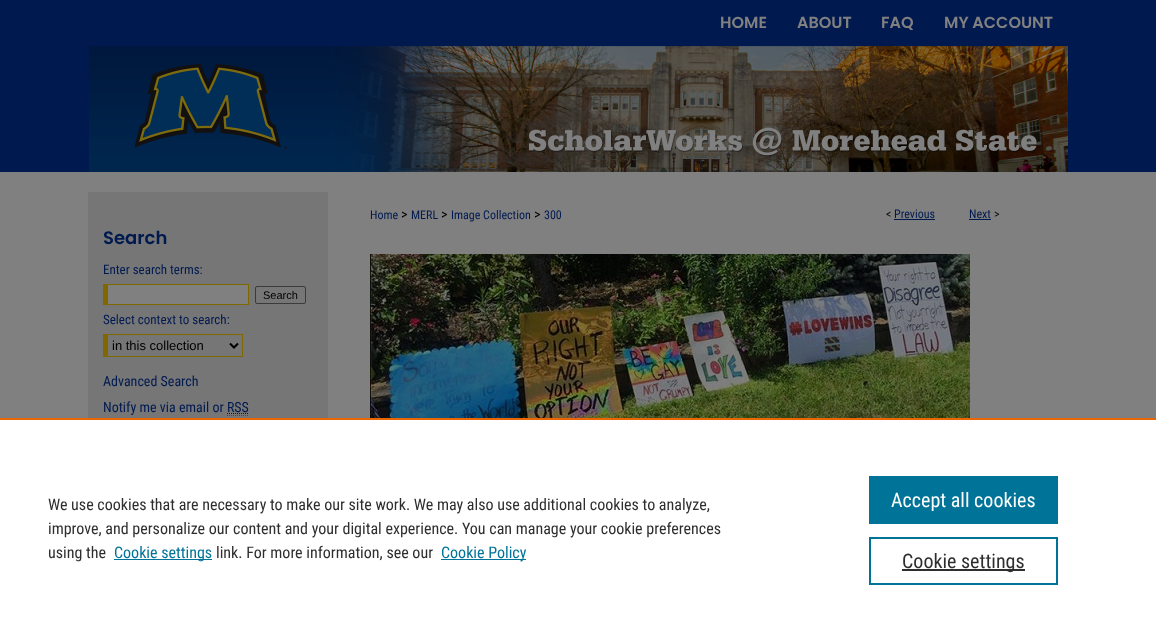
<!DOCTYPE html>
<meta charset="utf-8">
<style>body { margin: 0 } canvas { display: block }</style>
<canvas id="canvas" width="1156" height="638"></canvas>
<script type="module">
  const canvas = document.getElementById("canvas");
  const g = canvas.getContext("2d");
  g.miterLimit = 4;
  g.fontKerning = "normal";
  function drawText(s, x, y, [font, color]) {
    g.font = font;
    g.fillStyle = color;
    g.fillText(s, x, y);
  }
  function fillBox(x, y, w, h, color) {
    g.fillStyle = color;
    g.fillRect(x, y, w, h);
  }
  async function drawPicture(src, x, y, w, h) {
    const img = new Image();
    img.src = src;
    await img.decode();
    g.drawImage(img, x, y, w, h);
  }

  const s1 = ["600 16px Poppins", "#808080"];
  const s2 = ["12px Roboto Condensed", "#001A50"];
  const s3 = ["14px Roboto Condensed", "#000000"];
  const s4 = ["12px Roboto Condensed", "#111111"];
  const s5 = ["600 18px Poppins", "#001A50"];
  const s6 = ["13px Roboto Condensed", "#001A50"];
  const s7 = ["11px Liberation Sans", "#000000"];
  const s8 = ["13px Liberation Sans", "#000000"];
  const s9 = ["14px Roboto Condensed", "#001A50"];
  const s10 = ["16px Roboto Condensed", "#2E2E2E"];
  const s11 = ["16px Roboto Condensed", "#007398"];
  const s12 = ["20px Roboto Condensed", "#FFFFFF"];
  const s13 = ["20px Roboto Condensed", "#2E2E2E"];

  fillBox(0, 0, 1156, 638, "#808080");
  fillBox(0, 0, 1156, 172, "#001A50");
  drawText("HOME", 720, 28, s1);
  drawText("ABOUT", 797, 28, s1);
  drawText("FAQ", 881, 28, s1);
  drawText("MY ACCOUNT", 944, 28, s1);
  await drawPicture("pic1.png", 89, 46, 979, 126);
  drawText("Home", 370, 219, s2);
  drawText(">", 401, 219, s3);
  drawText("MERL", 411, 219, s2);
  drawText(">", 441, 219, s3);
  drawText("Image Collection", 451, 219, s2);
  drawText(">", 534, 219, s3);
  drawText("300", 544, 219, s2);
  drawText("<", 886, 218, s4);
  drawText("Previous", 894, 218, s2);
  fillBox(894, 219, 41, 1, "#001A50");
  drawText("Next", 969, 218, s2);
  fillBox(969, 219, 22, 1, "#001A50");
  drawText(">", 994, 218, s4);
  await drawPicture("pic2.png", 370, 254, 600, 164);
  fillBox(88, 192, 240, 226, "#767676");
  drawText("Search", 103, 244, s5);
  drawText("Enter search terms:", 103, 274, s6);
  fillBox(108, 285, 140, 19, "#808080");
  fillBox(103, 284, 146, 1, "#806801");
  fillBox(248, 284, 1, 21, "#806801");
  fillBox(103, 304, 146, 1, "#806801");
  fillBox(103, 284, 5, 21, "#806801");
  g.beginPath();
  g.roundRect(255.5, 286.5, 50, 17, 1.5);
  g.strokeStyle = "#3B3B3B";
  g.stroke();
  drawText("Search", 263, 299, s7);
  drawText("Select context to search:", 103, 324, s6);
  fillBox(103, 334, 140, 1, "#806801");
  fillBox(242, 334, 1, 23, "#806801");
  fillBox(103, 356, 140, 1, "#806801");
  fillBox(103, 334, 5, 23, "#806801");
  g.beginPath();
  g.moveTo(230, 343.5);
  g.lineTo(234, 347.5);
  g.lineTo(238, 343.5);
  g.strokeStyle = "#000000";
  g.lineWidth = 2;
  g.stroke();
  drawText("in this collection", 112, 350, s8);
  drawText("Advanced Search", 103, 386, s9);
  drawText("Notify me via email or RSS", 103, 412, s9);
  g.beginPath();
  g.moveTo(227, 413.5);
  g.lineTo(249, 413.5);
  g.strokeStyle = "#001A50";
  g.lineWidth = 1;
  g.setLineDash([1, 1]);
  g.stroke();
  g.beginPath();
  g.moveTo(227, 415.5);
  g.lineTo(249, 415.5);
  g.strokeStyle = "#4D4D4D";
  g.stroke();
  fillBox(0, 420, 1156, 218, "#FFFFFF");
  fillBox(0, 418, 1156, 2, "#EB6500");
  drawText("We use cookies that are necessary to make our site work. We may also use additional cookies to analyze,", 48, 510, s10);
  drawText("improve, and personalize our content and your digital experience. You can manage your cookie preferences", 48, 534, s10);
  drawText("using the", 48, 558, s10);
  fillBox(114, 559, 98, 1, "#007398");
  drawText("Cookie settings", 114, 558, s11);
  drawText("link. For more information, see our", 216, 558, s10);
  fillBox(441, 559, 85, 1, "#007398");
  drawText("Cookie Policy", 441, 558, s11);
  fillBox(869, 476, 189, 48, "#007398");
  drawText("Accept all cookies", 891, 507, s12);
  g.strokeStyle = "#007398";
  g.lineWidth = 2;
  g.setLineDash([]);
  g.strokeRect(870, 538, 187, 46);
  fillBox(902, 569, 123, 2, "#2E2E2E");
  drawText("Cookie settings", 902, 568, s13);
</script>
